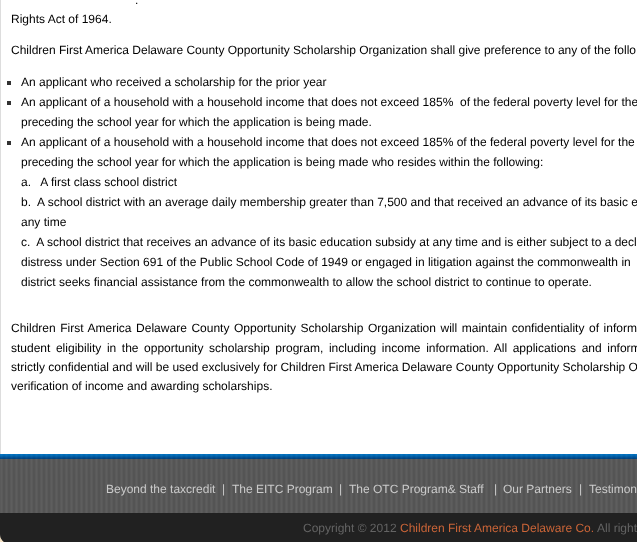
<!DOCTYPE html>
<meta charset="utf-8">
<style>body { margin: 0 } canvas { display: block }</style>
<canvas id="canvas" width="637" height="542"></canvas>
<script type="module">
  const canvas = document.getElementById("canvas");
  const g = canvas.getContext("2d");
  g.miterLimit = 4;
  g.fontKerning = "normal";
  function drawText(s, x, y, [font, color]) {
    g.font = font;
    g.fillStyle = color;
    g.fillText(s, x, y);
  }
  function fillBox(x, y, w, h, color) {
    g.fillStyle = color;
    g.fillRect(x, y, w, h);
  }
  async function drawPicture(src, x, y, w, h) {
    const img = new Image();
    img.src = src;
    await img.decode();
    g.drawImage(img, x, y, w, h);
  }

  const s1 = ["12px Liberation Sans", "#000000"];
  const s2 = ["12px Liberation Sans", "#CBCBCB"];
  const s3 = ["12px Liberation Sans", "#646464"];
  const s4 = ["12px Liberation Sans", "#CB6538"];

  fillBox(0, 0, 637, 542, "#FFFFFF");
  await drawPicture("pic1.png", 0, 534, 4, 8);
  fillBox(0, 0, 1, 454, "#DDDDDD");
  drawText(".", 135, 4, s1);
  drawText("Rights Act of 1964.", 11, 23, s1);
  drawText("Children First America Delaware County Opportunity Scholarship Organization shall give preference to any of the follo", 11, 54, s1);
  fillBox(7, 81, 4, 4, "#333333");
  drawText("An applicant who received a scholarship for the prior year", 21, 86, s1);
  fillBox(7, 101, 4, 4, "#333333");
  drawText("An applicant of a household with a household income that does not exceed 185%  of the federal poverty level for the", 21, 106, s1);
  drawText("preceding the school year for which the application is being made.", 21, 126, s1);
  fillBox(7, 141, 4, 4, "#333333");
  drawText("An applicant of a household with a household income that does not exceed 185% of the federal poverty level for the", 21, 146, s1);
  drawText("preceding the school year for which the application is being made who resides within the following:", 21, 166, s1);
  drawText("a.   A first class school district", 21, 186, s1);
  drawText("b.  A school district with an average daily membership greater than 7,500 and that received an advance of its basic e", 21, 206, s1);
  drawText("any time", 21, 226, s1);
  drawText("c.  A school district that receives an advance of its basic education subsidy at any time and is either subject to a decl", 21, 246, s1);
  drawText("distress under Section 691 of the Public School Code of 1949 or engaged in litigation against the commonwealth in", 21, 266, s1);
  drawText("district seeks financial assistance from the commonwealth to allow the school district to continue to operate.", 21, 286, s1);
  g.wordSpacing = "1.25px";
  drawText("Children First America Delaware County Opportunity Scholarship Organization will maintain confidentiality of inform", 11, 332, s1);
  g.wordSpacing = "2.25px";
  drawText("student eligibility in the opportunity scholarship program, including income information. All applications and inform", 11, 352, s1);
  g.wordSpacing = "0px";
  drawText("strictly confidential and will be used exclusively for Children First America Delaware County Opportunity Scholarship O", 11, 371, s1);
  drawText("verification of income and awarding scholarships.", 11, 390, s1);
  g.fillStyle = "#494949";
  g.beginPath();
  g.moveTo(0, 454);
  g.lineTo(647, 454);
  g.lineTo(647, 534);
  g.bezierCurveTo(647, 539.5, 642.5, 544, 637, 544);
  g.lineTo(10, 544);
  g.bezierCurveTo(4.5, 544, 0, 539.5, 0, 534);
  g.closePath();
  g.fill();
  await drawPicture("pic2.png", 0, 454, 637, 88);
  drawText("Beyond the taxcredit", 106, 493, s2);
  drawText("|", 222, 493, s2);
  drawText("The EITC Program", 232, 493, s2);
  drawText("|", 339, 493, s2);
  drawText("The OTC Program& Staff", 349, 493, s2);
  drawText("|", 494, 493, s2);
  drawText("Our Partners", 503, 493, s2);
  drawText("|", 579, 493, s2);
  drawText("Testimon", 589, 493, s2);
  drawText("Copyright © 2012", 303, 532, s3);
  drawText("Children First America Delaware Co.", 400, 532, s4);
  drawText("All right", 597, 532, s3);
</script>
